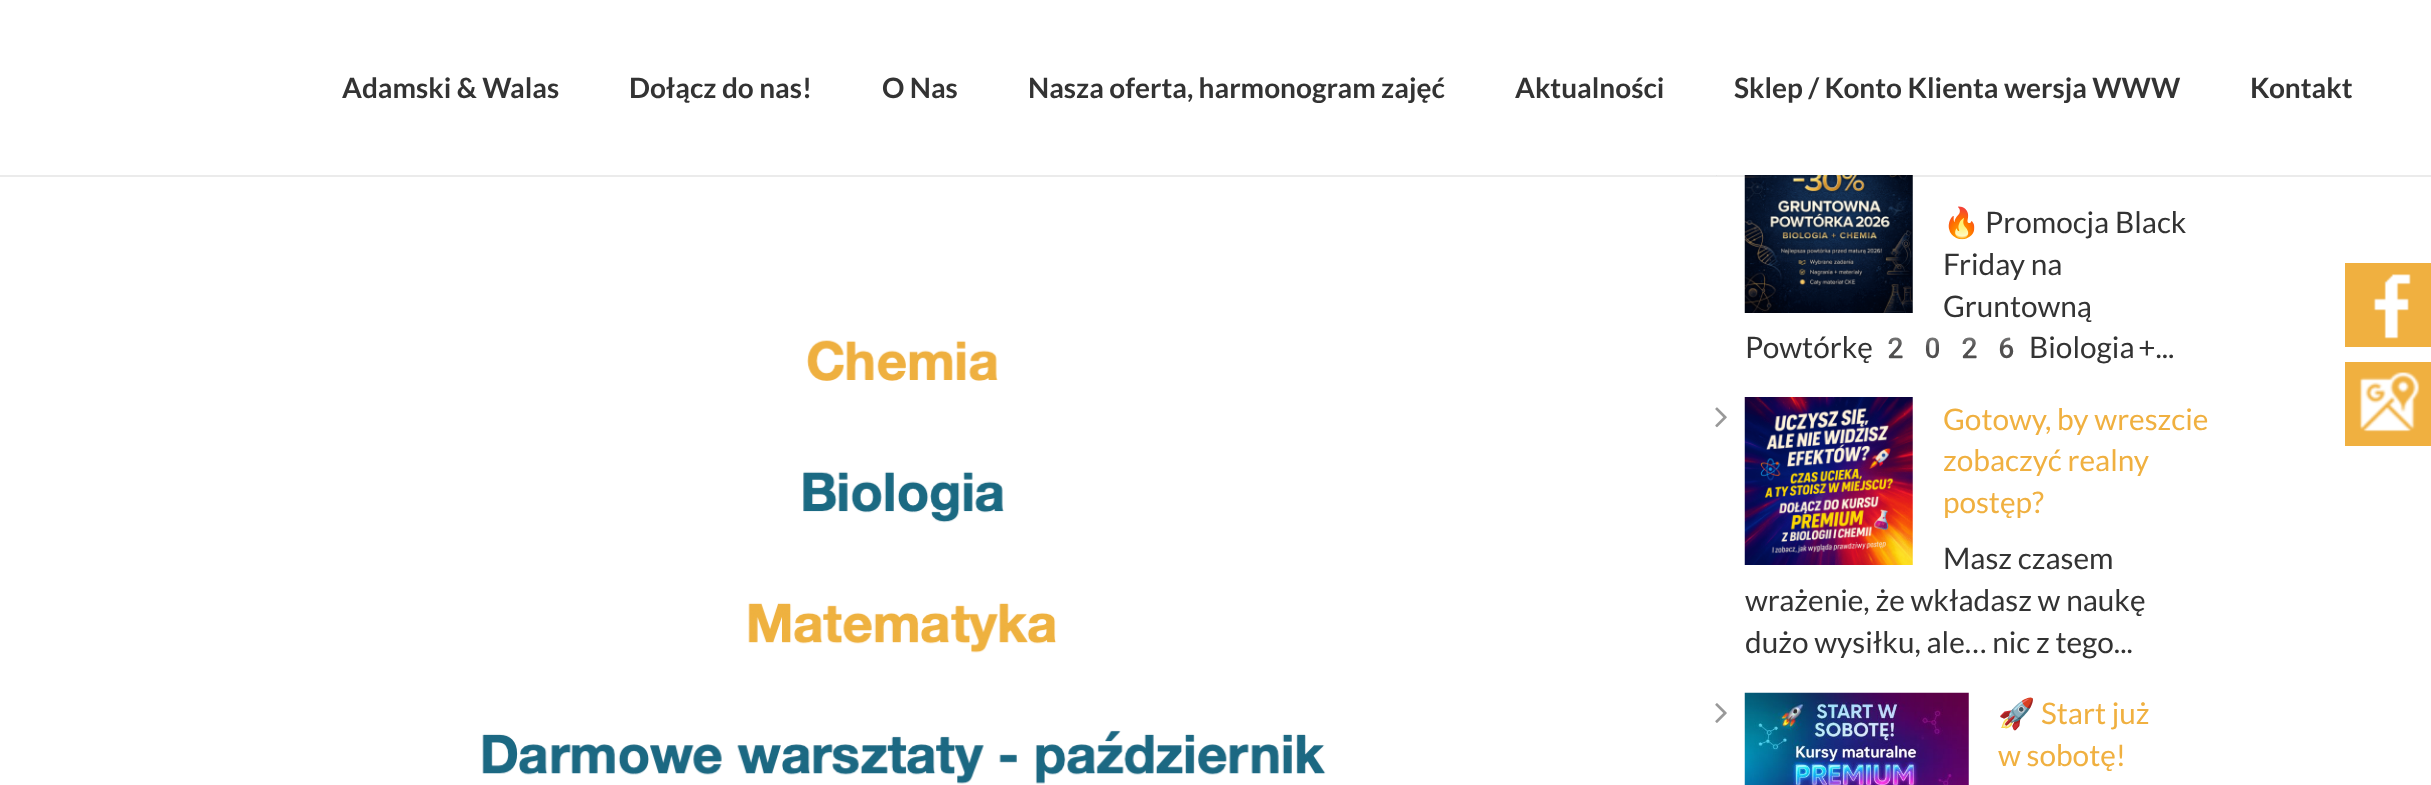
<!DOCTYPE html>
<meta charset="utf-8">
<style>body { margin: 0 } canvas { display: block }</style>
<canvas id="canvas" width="2431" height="785"></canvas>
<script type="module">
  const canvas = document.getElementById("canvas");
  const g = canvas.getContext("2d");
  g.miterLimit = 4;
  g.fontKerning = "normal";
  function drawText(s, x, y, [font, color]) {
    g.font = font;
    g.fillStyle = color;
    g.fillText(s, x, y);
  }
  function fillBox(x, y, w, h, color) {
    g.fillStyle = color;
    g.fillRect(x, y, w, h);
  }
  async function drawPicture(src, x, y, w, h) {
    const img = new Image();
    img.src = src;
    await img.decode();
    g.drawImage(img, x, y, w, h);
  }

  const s1 = ["bold 28px Lato", "#333333"];
  const s2 = ["29.75px Noto Color Emoji", "#333333"];
  const s3 = ["29.75px Lato", "#333333"];
  const s4 = ["29.75px Lato", "#F0B040"];
  const s5 = ["29.75px Noto Color Emoji", "#F0B040"];

  fillBox(0, 0, 2431, 785, "#FFFFFF");
  await drawPicture("pic1.png", 219, 175, 1396, 610);
  await drawPicture("pic2.png", 1716, 175, 1, 1);
  await drawPicture("pic3.png", 1744, 175, 169, 138);
  g.fillStyle = "rgba(0, 0, 0, 0.08)";
  g.beginPath();
  g.moveTo(0, 175);
  g.lineTo(0, 177);
  g.lineTo(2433, 177);
  g.lineTo(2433, 2);
  g.lineTo(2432, 2);
  g.lineTo(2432, 175);
  g.closePath();
  g.fill();
  drawText("Adamski & Walas", 342, 98, s1);
  drawText("Dołącz do nas!", 629, 98, s1);
  drawText("O Nas", 882, 98, s1);
  drawText("Nasza oferta, harmonogram zajęć", 1028, 98, s1);
  drawText("Aktualności", 1515, 98, s1);
  drawText("Sklep / Konto Klienta wersja WWW", 1734, 98, s1);
  drawText("Kontakt", 2250, 98, s1);
  drawText("🔥", 1943, 233, s2);
  drawText("Promocja Black", 1985, 233, s3);
  drawText("Friday na", 1943, 275, s3);
  drawText("Gruntowną", 1943, 317, s3);
  drawText("Powtórkę", 1745, 358, s3);
  drawText("2026", 1877, 358, s2);
  g.wordSpacing = "-2px";
  drawText("Biologia +...", 2029, 358, s3);
  await drawPicture("pic4.png", 1715, 407, 12, 21);
  await drawPicture("pic5.png", 1744, 397, 169, 168);
  g.wordSpacing = "0px";
  drawText("Gotowy, by wreszcie", 1943, 430, s4);
  drawText("zobaczyć realny", 1943, 471, s4);
  drawText("postęp?", 1943, 513, s4);
  drawText("Masz czasem", 1943, 569, s3);
  drawText("wrażenie, że wkładasz w naukę", 1745, 611, s3);
  drawText("dużo wysiłku, ale… nic z tego...", 1745, 653, s3);
  await drawPicture("pic6.png", 1715, 703, 12, 20);
  await drawPicture("pic7.png", 1744, 692, 225, 93);
  drawText("🚀", 1998, 724, s5);
  drawText("Start już", 2041, 724, s4);
  drawText("w sobotę!", 1998, 766, s4);
  fillBox(2345, 263, 86, 84, "#F0B040");
  await drawPicture("pic8.png", 2373, 274, 38, 65);
  fillBox(2345, 362, 86, 84, "#F0B040");
  await drawPicture("pic9.png", 2359, 372, 61, 60);
</script>
